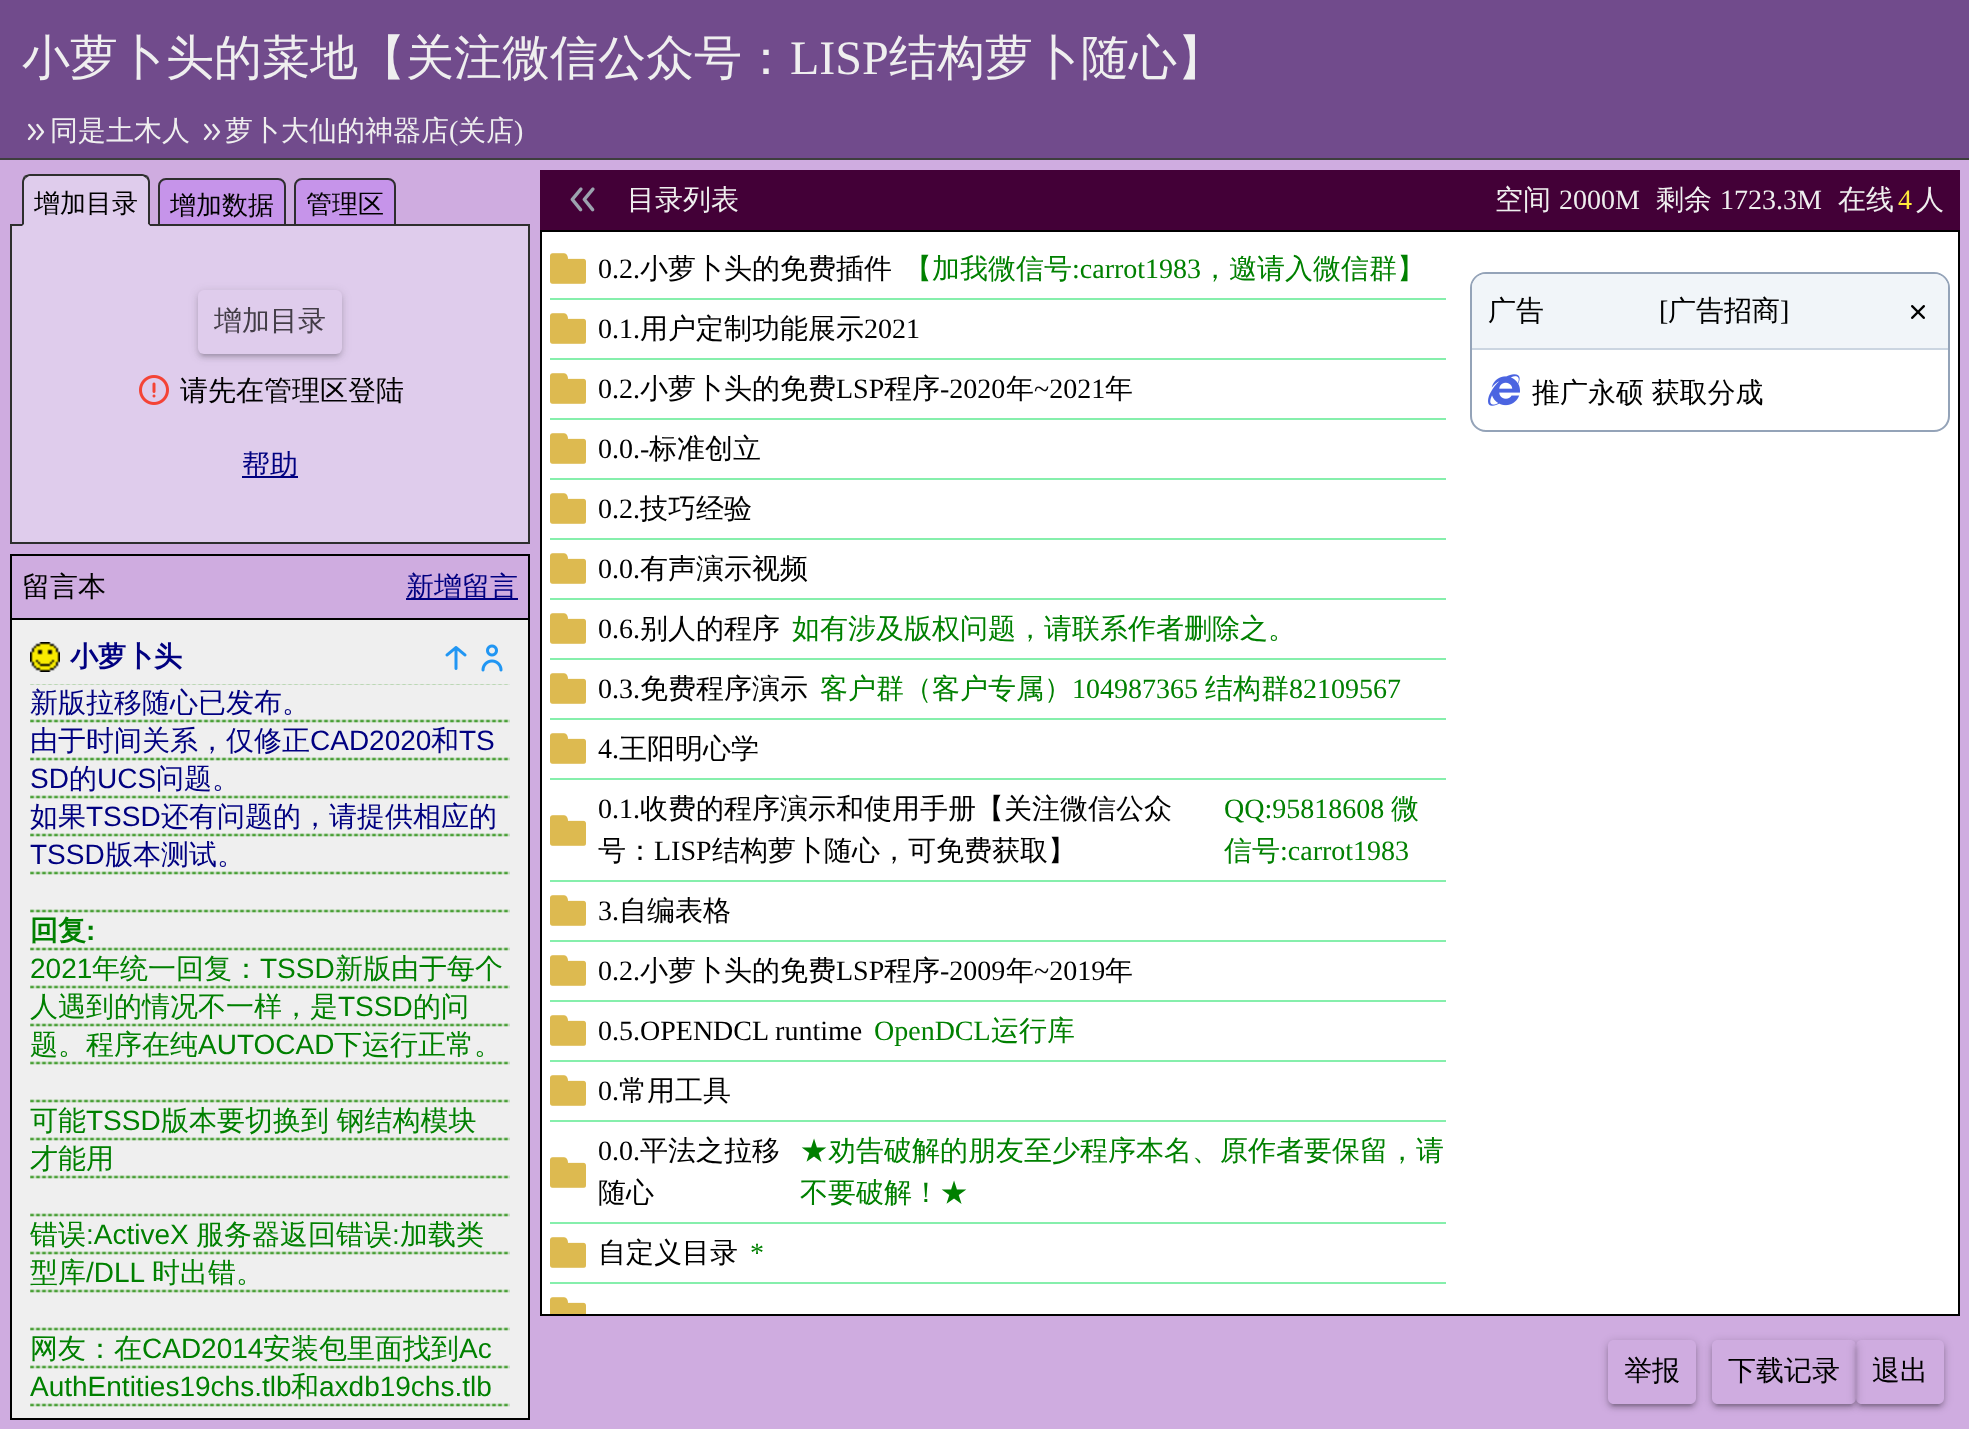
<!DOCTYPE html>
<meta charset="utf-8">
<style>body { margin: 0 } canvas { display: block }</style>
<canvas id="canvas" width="1969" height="1429"></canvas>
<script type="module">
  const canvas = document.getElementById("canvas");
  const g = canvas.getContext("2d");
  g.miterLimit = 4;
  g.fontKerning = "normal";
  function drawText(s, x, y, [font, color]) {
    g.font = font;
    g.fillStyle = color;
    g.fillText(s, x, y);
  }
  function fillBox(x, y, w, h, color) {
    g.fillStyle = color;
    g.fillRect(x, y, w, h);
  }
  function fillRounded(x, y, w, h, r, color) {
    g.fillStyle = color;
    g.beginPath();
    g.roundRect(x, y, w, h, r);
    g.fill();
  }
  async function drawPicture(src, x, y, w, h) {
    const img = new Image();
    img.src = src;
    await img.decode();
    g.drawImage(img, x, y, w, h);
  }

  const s1 = ["500 48px WenQuanYi Zen Hei", "#EFEFEF"];
  const s2 = ["48px Liberation Serif", "#EFEFEF"];
  const s3 = ["500 28px WenQuanYi Zen Hei", "#EFEFEF"];
  const s4 = ["28px Liberation Serif", "#EFEFEF"];
  const s5 = ["500 26px WenQuanYi Zen Hei", "#000000"];
  const s6 = ["500 28px WenQuanYi Zen Hei", "#433D47"];
  const s7 = ["500 28px WenQuanYi Zen Hei", "#000000"];
  const s8 = ["500 28px WenQuanYi Zen Hei", "#000080"];
  const s9 = ["bold 28px WenQuanYi Zen Hei", "#000080"];
  const s10 = ["28px Liberation Sans", "#000080"];
  const s11 = ["bold 28px WenQuanYi Zen Hei", "#008000"];
  const s12 = ["bold 28px Liberation Sans", "#008000"];
  const s13 = ["28px Liberation Sans", "#008000"];
  const s14 = ["500 28px WenQuanYi Zen Hei", "#008000"];
  const s15 = ["28px Liberation Serif", "#FFEB3B"];
  const s16 = ["28px Liberation Serif", "#000000"];
  const s17 = ["28px Liberation Serif", "#008000"];

  fillBox(0, 0, 1969, 1429, "#CFACE0");
  fillBox(0, 0, 1969, 158, "#714B8C");
  fillBox(0, 158, 1969, 2, "#3E3E3E");
  drawText("小萝卜头的菜地【关注微信公众号：", 22, 74, s1);
  drawText("LISP", 790, 74, s2);
  drawText("结构萝卜随心】", 889, 74, s1);
  await drawPicture("pic1.png", 27, 123, 18, 18);
  drawText("同是土木人", 50, 140, s3);
  await drawPicture("pic1.png", 203, 123, 18, 18);
  drawText("萝卜大仙的神器店", 225, 140, s3);
  drawText("(", 449, 140, s4);
  drawText("关店", 458, 140, s3);
  drawText(")", 514, 140, s4);
  g.fillStyle = "#DFCCEC";
  g.beginPath();
  g.rect(11, 225, 518, 318);
  g.fill();
  g.strokeStyle = "#2E2E2E";
  g.lineWidth = 2;
  g.stroke();
  g.beginPath();
  g.roundRect(22, 174, 128, 52, [8, 8, 0, 0]);
  g.fill();
  g.fillStyle = "#2E2E2E";
  g.beginPath();
  g.moveTo(30, 174);
  g.bezierCurveTo(28, 174, 26, 175, 24, 176);
  g.lineTo(26, 178);
  g.lineTo(29, 176);
  g.lineTo(143, 176);
  g.lineTo(146, 178);
  g.lineTo(148, 176);
  g.bezierCurveTo(146, 175, 144, 174, 142, 174);
  g.closePath();
  g.fill();
  g.beginPath();
  g.moveTo(150, 226);
  g.lineTo(150, 182);
  g.bezierCurveTo(150, 180, 149, 178, 148, 176);
  g.lineTo(146, 178);
  g.bezierCurveTo(147, 179, 148, 180, 148, 182);
  g.lineTo(148, 224);
  g.closePath();
  g.fill();
  g.fillStyle = "#DFCCEC";
  g.beginPath();
  g.moveTo(150, 226);
  g.lineTo(148, 224);
  g.lineTo(24, 224);
  g.lineTo(22, 226);
  g.closePath();
  g.fill();
  g.fillStyle = "#2E2E2E";
  g.beginPath();
  g.moveTo(22, 226);
  g.lineTo(24, 224);
  g.lineTo(24, 182);
  g.bezierCurveTo(24, 180, 25, 179, 26, 178);
  g.lineTo(24, 176);
  g.bezierCurveTo(23, 178, 22, 180, 22, 182);
  g.closePath();
  g.fill();
  drawText("增加目录", 34, 212, s5);
  g.fillStyle = "#C694EA";
  g.beginPath();
  g.roundRect(159, 179, 126, 46, [7, 7, 0, 0]);
  g.fill();
  g.stroke();
  drawText("增加数据", 170, 214, s5);
  g.fillStyle = "#C694EA";
  g.beginPath();
  g.roundRect(295, 179, 100, 46, [7, 7, 0, 0]);
  g.fill();
  g.stroke();
  drawText("管理区", 306, 213, s5);
  g.fillStyle = "rgba(67, 61, 71, 0.12)";
  g.filter = "blur(1px)";
  g.beginPath();
  g.roundRect(202, 300, 136, 56, 2);
  g.fill();
  g.filter = "none";
  g.fillStyle = "rgba(67, 61, 71, 0.14)";
  g.filter = "blur(2px)";
  g.beginPath();
  g.roundRect(198, 294, 144, 64, 6);
  g.fill();
  g.filter = "none";
  g.fillStyle = "rgba(67, 61, 71, 0.2)";
  g.filter = "blur(5px)";
  g.beginPath();
  g.roundRect(198, 292, 144, 64, 6);
  g.fill();
  g.filter = "none";
  fillRounded(198, 290, 144, 64, 6, "#DFCCEC");
  drawText("增加目录", 214, 330, s6);
  await drawPicture("pic2.png", 139, 375, 30, 30);
  drawText("请先在管理区登陆", 180, 400, s7);
  fillBox(242, 476, 56, 2, "#000080");
  drawText("帮助", 242, 474, s8);
  fillBox(10, 554, 520, 2, "#000000");
  fillBox(528, 554, 2, 64, "#000000");
  fillBox(10, 554, 2, 64, "#000000");
  drawText("留言本", 22, 596, s7);
  fillBox(406, 598, 112, 2, "#000080");
  drawText("新增留言", 406, 596, s8);
  g.fillStyle = "#EFEFEF";
  g.beginPath();
  g.rect(11, 619, 518, 800);
  g.fill();
  g.strokeStyle = "#000000";
  g.stroke();
  await drawPicture("pic3.png", 30, 642, 30, 30);
  drawText("小萝卜头", 70, 666, s9);
  await drawPicture("pic4.png", 445, 646, 22, 24);
  await drawPicture("pic5.png", 481, 644, 22, 28);
  await drawPicture("pic6.png", 30, 684, 480, 723);
  drawText("新版拉移随心已发布。", 30, 712, s8);
  drawText("由于时间关系，仅修正", 30, 750, s8);
  drawText("CAD2020", 310, 750, s10);
  drawText("和", 431, 750, s8);
  drawText("TS", 459, 750, s10);
  drawText("SD", 30, 788, s10);
  drawText("的", 69, 788, s8);
  drawText("UCS", 97, 788, s10);
  drawText("问题。", 156, 788, s8);
  drawText("如果", 30, 826, s8);
  drawText("TSSD", 86, 826, s10);
  drawText("还有问题的，请提供相应的", 161, 826, s8);
  drawText("TSSD", 30, 864, s10);
  drawText("版本测试。", 105, 864, s8);
  drawText("回复", 30, 940, s11);
  drawText(":", 86, 940, s12);
  drawText("2021", 30, 978, s13);
  drawText("年统一回复：", 92, 978, s14);
  drawText("TSSD", 260, 978, s13);
  drawText("新版由于每个", 335, 978, s14);
  drawText("人遇到的情况不一样，是", 30, 1016, s14);
  drawText("TSSD", 338, 1016, s13);
  drawText("的问", 413, 1016, s14);
  drawText("题。程序在纯", 30, 1054, s14);
  drawText("AUTOCAD", 198, 1054, s13);
  drawText("下运行正常。", 334, 1054, s14);
  drawText("可能", 30, 1130, s14);
  drawText("TSSD", 86, 1130, s13);
  g.wordSpacing = "-1px";
  drawText("版本要切换到 钢结构模块", 161, 1130, s14);
  g.wordSpacing = "0px";
  drawText("才能用", 30, 1168, s14);
  drawText("错误", 30, 1244, s14);
  drawText(":ActiveX", 86, 1244, s13);
  drawText("服务器返回错误", 196, 1244, s14);
  drawText(":", 392, 1244, s13);
  drawText("加载类", 400, 1244, s14);
  drawText("型库", 30, 1282, s14);
  drawText("/DLL", 86, 1282, s13);
  drawText("时出错。", 152, 1282, s14);
  drawText("网友：在", 30, 1358, s14);
  drawText("CAD2014", 142, 1358, s13);
  drawText("安装包里面找到", 263, 1358, s14);
  drawText("Ac", 459, 1358, s13);
  drawText("AuthEntities19chs.tlb", 30, 1396, s13);
  drawText("和", 291, 1396, s14);
  drawText("axdb19chs.tlb", 319, 1396, s13);
  fillBox(540, 170, 1420, 60, "#430037");
  await drawPicture("pic7.png", 570, 187, 25, 25);
  drawText("目录列表", 627, 209, s3);
  drawText("空间", 1495, 209, s3);
  drawText("2000M", 1559, 209, s4);
  drawText("剩余", 1656, 209, s3);
  drawText("1723.3M", 1720, 209, s4);
  drawText("在线", 1838, 209, s3);
  drawText("4", 1898, 209, s15);
  drawText("人", 1916, 209, s3);
  g.fillStyle = "#FFFFFF";
  g.beginPath();
  g.rect(541, 231, 1418, 1084);
  g.fill();
  g.stroke();
  fillBox(550, 298, 896, 2, "#86EFAC");
  await drawPicture("pic8.png", 550, 253, 36, 31);
  drawText("0.2.", 598, 278, s16);
  drawText("小萝卜头的免费插件", 640, 278, s7);
  drawText("【加我微信号", 904, 278, s14);
  drawText(":carrot1983", 1072, 278, s17);
  drawText("，邀请入微信群】", 1201, 278, s14);
  fillBox(550, 358, 896, 2, "#86EFAC");
  await drawPicture("pic8.png", 550, 313, 36, 31);
  drawText("0.1.", 598, 338, s16);
  drawText("用户定制功能展示", 640, 338, s7);
  drawText("2021", 864, 338, s16);
  fillBox(550, 418, 896, 2, "#86EFAC");
  await drawPicture("pic8.png", 550, 373, 36, 31);
  drawText("0.2.", 598, 398, s16);
  drawText("小萝卜头的免费", 640, 398, s7);
  drawText("LSP", 836, 398, s16);
  drawText("程序", 884, 398, s7);
  drawText("-2020", 940, 398, s16);
  drawText("年", 1006, 398, s7);
  drawText("~2021", 1034, 398, s16);
  drawText("年", 1105, 398, s7);
  fillBox(550, 478, 896, 2, "#86EFAC");
  await drawPicture("pic8.png", 550, 433, 36, 31);
  drawText("0.0.-", 598, 458, s16);
  drawText("标准创立", 649, 458, s7);
  fillBox(550, 538, 896, 2, "#86EFAC");
  await drawPicture("pic8.png", 550, 493, 36, 31);
  drawText("0.2.", 598, 518, s16);
  drawText("技巧经验", 640, 518, s7);
  fillBox(550, 598, 896, 2, "#86EFAC");
  await drawPicture("pic8.png", 550, 553, 36, 31);
  drawText("0.0.", 598, 578, s16);
  drawText("有声演示视频", 640, 578, s7);
  fillBox(550, 658, 896, 2, "#86EFAC");
  await drawPicture("pic8.png", 550, 613, 36, 31);
  drawText("0.6.", 598, 638, s16);
  drawText("别人的程序", 640, 638, s7);
  drawText("如有涉及版权问题，请联系作者删除之。", 792, 638, s14);
  fillBox(550, 718, 896, 2, "#86EFAC");
  await drawPicture("pic8.png", 550, 673, 36, 31);
  drawText("0.3.", 598, 698, s16);
  drawText("免费程序演示", 640, 698, s7);
  drawText("客户群（客户专属）", 820, 698, s14);
  drawText("104987365", 1072, 698, s17);
  drawText("结构群", 1205, 698, s14);
  drawText("82109567", 1289, 698, s17);
  fillBox(550, 778, 896, 2, "#86EFAC");
  await drawPicture("pic8.png", 550, 733, 36, 31);
  drawText("4.", 598, 758, s16);
  drawText("王阳明心学", 619, 758, s7);
  fillBox(550, 880, 896, 2, "#86EFAC");
  await drawPicture("pic8.png", 550, 815, 36, 31);
  drawText("0.1.", 598, 818, s16);
  drawText("收费的程序演示和使用手册【关注微信公众", 640, 818, s7);
  drawText("号：", 598, 860, s7);
  drawText("LISP", 654, 860, s16);
  drawText("结构萝卜随心，可免费获取】", 712, 860, s7);
  drawText("QQ:95818608", 1224, 818, s17);
  drawText("微", 1391, 818, s14);
  drawText("信号", 1224, 860, s14);
  drawText(":carrot1983", 1280, 860, s17);
  fillBox(550, 940, 896, 2, "#86EFAC");
  await drawPicture("pic8.png", 550, 895, 36, 31);
  drawText("3.", 598, 920, s16);
  drawText("自编表格", 619, 920, s7);
  fillBox(550, 1000, 896, 2, "#86EFAC");
  await drawPicture("pic8.png", 550, 955, 36, 31);
  drawText("0.2.", 598, 980, s16);
  drawText("小萝卜头的免费", 640, 980, s7);
  drawText("LSP", 836, 980, s16);
  drawText("程序", 884, 980, s7);
  drawText("-2009", 940, 980, s16);
  drawText("年", 1006, 980, s7);
  drawText("~2019", 1034, 980, s16);
  drawText("年", 1105, 980, s7);
  fillBox(550, 1060, 896, 2, "#86EFAC");
  await drawPicture("pic8.png", 550, 1015, 36, 31);
  drawText("0.5.OPENDCL runtime", 598, 1040, s16);
  drawText("OpenDCL", 874, 1040, s17);
  drawText("运行库", 991, 1040, s14);
  fillBox(550, 1120, 896, 2, "#86EFAC");
  await drawPicture("pic8.png", 550, 1075, 36, 31);
  drawText("0.", 598, 1100, s16);
  drawText("常用工具", 619, 1100, s7);
  fillBox(550, 1222, 896, 2, "#86EFAC");
  await drawPicture("pic8.png", 550, 1157, 36, 31);
  drawText("0.0.", 598, 1160, s16);
  drawText("平法之拉移", 640, 1160, s7);
  drawText("随心", 598, 1202, s7);
  drawText("★劝告破解的朋友至少程序本名、原作者要保留，请", 800, 1160, s14);
  drawText("不要破解！★", 800, 1202, s14);
  fillBox(550, 1282, 896, 2, "#86EFAC");
  await drawPicture("pic8.png", 550, 1237, 36, 31);
  drawText("自定义目录", 598, 1262, s7);
  drawText("*", 750, 1262, s17);
  await drawPicture("pic9.png", 550, 1297, 36, 17);
  g.beginPath();
  g.roundRect(1471, 273, 478, 158, 15);
  g.strokeStyle = "#94A3B8";
  g.stroke();
  g.fillStyle = "#F1F5F9";
  g.beginPath();
  g.roundRect(1472, 274, 476, 76, [14, 14, 0, 0]);
  g.fill();
  fillBox(1472, 348, 476, 2, "#CBD5E1");
  drawText("广告", 1488, 320, s7);
  drawText("[", 1659, 320, s16);
  drawText("广告招商", 1668, 320, s7);
  drawText("]", 1780, 320, s16);
  await drawPicture("pic10.png", 1911, 305, 14, 14);
  await drawPicture("pic11.png", 1488, 374, 32, 32);
  g.wordSpacing = "-1px";
  drawText("推广永硕 获取分成", 1532, 402, s7);
  g.save();
  g.beginPath();
  g.rect(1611, 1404, 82, 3);
  g.clip();
  g.fillStyle = "rgba(0, 0, 0, 0.12)";
  g.filter = "blur(1px)";
  g.beginPath();
  g.roundRect(1612, 1350, 80, 56, 2);
  g.fill();
  g.filter = "none";
  g.restore();
  g.save();
  g.beginPath();
  g.moveTo(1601, 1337);
  g.lineTo(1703, 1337);
  g.lineTo(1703, 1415);
  g.lineTo(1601, 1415);
  g.closePath();
  g.moveTo(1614, 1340);
  g.lineTo(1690, 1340);
  g.bezierCurveTo(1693.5, 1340, 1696, 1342.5, 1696, 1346);
  g.lineTo(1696, 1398);
  g.bezierCurveTo(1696, 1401.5, 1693.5, 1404, 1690, 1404);
  g.lineTo(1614, 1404);
  g.bezierCurveTo(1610.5, 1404, 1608, 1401.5, 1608, 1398);
  g.lineTo(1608, 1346);
  g.bezierCurveTo(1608, 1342.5, 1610.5, 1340, 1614, 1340);
  g.closePath();
  g.clip("evenodd");
  g.fillStyle = "rgba(0, 0, 0, 0.14)";
  g.filter = "blur(2px)";
  g.beginPath();
  g.roundRect(1608, 1344, 88, 64, 6);
  g.fill();
  g.filter = "none";
  g.restore();
  g.save();
  g.beginPath();
  g.moveTo(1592, 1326);
  g.lineTo(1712, 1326);
  g.lineTo(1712, 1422);
  g.lineTo(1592, 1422);
  g.closePath();
  g.moveTo(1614, 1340);
  g.lineTo(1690, 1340);
  g.bezierCurveTo(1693.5, 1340, 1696, 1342.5, 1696, 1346);
  g.lineTo(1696, 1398);
  g.bezierCurveTo(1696, 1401.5, 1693.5, 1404, 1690, 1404);
  g.lineTo(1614, 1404);
  g.bezierCurveTo(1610.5, 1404, 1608, 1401.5, 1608, 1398);
  g.lineTo(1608, 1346);
  g.bezierCurveTo(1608, 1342.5, 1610.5, 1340, 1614, 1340);
  g.closePath();
  g.clip("evenodd");
  g.fillStyle = "rgba(0, 0, 0, 0.2)";
  g.filter = "blur(5px)";
  g.beginPath();
  g.roundRect(1608, 1342, 88, 64, 6);
  g.fill();
  g.filter = "none";
  g.restore();
  g.wordSpacing = "0px";
  drawText("举报", 1624, 1380, s7);
  g.save();
  g.beginPath();
  g.rect(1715, 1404, 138, 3);
  g.clip();
  g.fillStyle = "rgba(0, 0, 0, 0.12)";
  g.filter = "blur(1px)";
  g.beginPath();
  g.roundRect(1716, 1350, 136, 56, 2);
  g.fill();
  g.filter = "none";
  g.restore();
  g.save();
  g.beginPath();
  g.moveTo(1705, 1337);
  g.lineTo(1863, 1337);
  g.lineTo(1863, 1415);
  g.lineTo(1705, 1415);
  g.closePath();
  g.moveTo(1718, 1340);
  g.lineTo(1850, 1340);
  g.bezierCurveTo(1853.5, 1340, 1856, 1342.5, 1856, 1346);
  g.lineTo(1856, 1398);
  g.bezierCurveTo(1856, 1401.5, 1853.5, 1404, 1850, 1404);
  g.lineTo(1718, 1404);
  g.bezierCurveTo(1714.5, 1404, 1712, 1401.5, 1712, 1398);
  g.lineTo(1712, 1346);
  g.bezierCurveTo(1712, 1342.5, 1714.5, 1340, 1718, 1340);
  g.closePath();
  g.clip("evenodd");
  g.fillStyle = "rgba(0, 0, 0, 0.14)";
  g.filter = "blur(2px)";
  g.beginPath();
  g.roundRect(1712, 1344, 144, 64, 6);
  g.fill();
  g.filter = "none";
  g.restore();
  g.save();
  g.beginPath();
  g.moveTo(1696, 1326);
  g.lineTo(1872, 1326);
  g.lineTo(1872, 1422);
  g.lineTo(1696, 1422);
  g.closePath();
  g.moveTo(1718, 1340);
  g.lineTo(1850, 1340);
  g.bezierCurveTo(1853.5, 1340, 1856, 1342.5, 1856, 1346);
  g.lineTo(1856, 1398);
  g.bezierCurveTo(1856, 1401.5, 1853.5, 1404, 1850, 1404);
  g.lineTo(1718, 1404);
  g.bezierCurveTo(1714.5, 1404, 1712, 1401.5, 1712, 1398);
  g.lineTo(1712, 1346);
  g.bezierCurveTo(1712, 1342.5, 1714.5, 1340, 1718, 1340);
  g.closePath();
  g.clip("evenodd");
  g.fillStyle = "rgba(0, 0, 0, 0.2)";
  g.filter = "blur(5px)";
  g.beginPath();
  g.roundRect(1712, 1342, 144, 64, 6);
  g.fill();
  g.filter = "none";
  g.restore();
  drawText("下载记录", 1728, 1380, s7);
  g.save();
  g.beginPath();
  g.rect(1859, 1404, 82, 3);
  g.clip();
  g.fillStyle = "rgba(0, 0, 0, 0.12)";
  g.filter = "blur(1px)";
  g.beginPath();
  g.roundRect(1860, 1350, 80, 56, 2);
  g.fill();
  g.filter = "none";
  g.restore();
  g.save();
  g.beginPath();
  g.moveTo(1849, 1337);
  g.lineTo(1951, 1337);
  g.lineTo(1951, 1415);
  g.lineTo(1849, 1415);
  g.closePath();
  g.moveTo(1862, 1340);
  g.lineTo(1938, 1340);
  g.bezierCurveTo(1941.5, 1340, 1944, 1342.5, 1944, 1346);
  g.lineTo(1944, 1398);
  g.bezierCurveTo(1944, 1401.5, 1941.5, 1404, 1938, 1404);
  g.lineTo(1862, 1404);
  g.bezierCurveTo(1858.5, 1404, 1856, 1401.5, 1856, 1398);
  g.lineTo(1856, 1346);
  g.bezierCurveTo(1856, 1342.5, 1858.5, 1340, 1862, 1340);
  g.closePath();
  g.clip("evenodd");
  g.fillStyle = "rgba(0, 0, 0, 0.14)";
  g.filter = "blur(2px)";
  g.beginPath();
  g.roundRect(1856, 1344, 88, 64, 6);
  g.fill();
  g.filter = "none";
  g.restore();
  g.save();
  g.beginPath();
  g.moveTo(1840, 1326);
  g.lineTo(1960, 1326);
  g.lineTo(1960, 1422);
  g.lineTo(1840, 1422);
  g.closePath();
  g.moveTo(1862, 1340);
  g.lineTo(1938, 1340);
  g.bezierCurveTo(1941.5, 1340, 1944, 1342.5, 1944, 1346);
  g.lineTo(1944, 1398);
  g.bezierCurveTo(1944, 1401.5, 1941.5, 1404, 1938, 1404);
  g.lineTo(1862, 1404);
  g.bezierCurveTo(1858.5, 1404, 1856, 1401.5, 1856, 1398);
  g.lineTo(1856, 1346);
  g.bezierCurveTo(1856, 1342.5, 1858.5, 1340, 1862, 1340);
  g.closePath();
  g.clip("evenodd");
  g.fillStyle = "rgba(0, 0, 0, 0.2)";
  g.filter = "blur(5px)";
  g.beginPath();
  g.roundRect(1856, 1342, 88, 64, 6);
  g.fill();
  g.filter = "none";
  g.restore();
  drawText("退出", 1872, 1380, s7);
</script>
